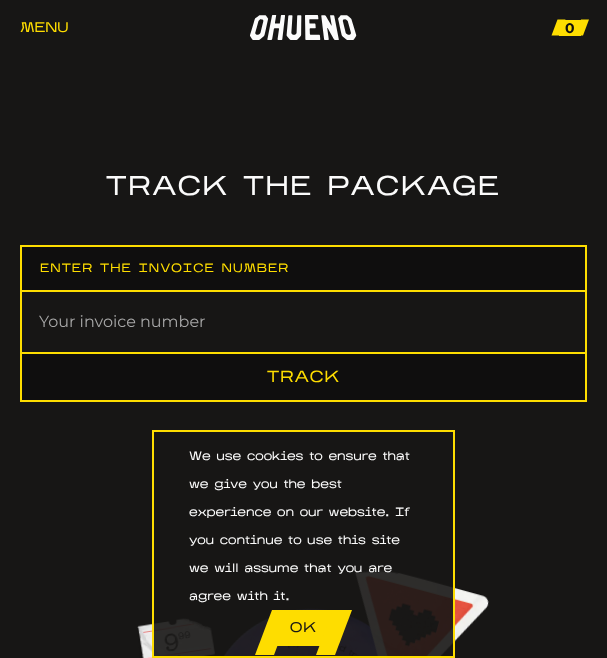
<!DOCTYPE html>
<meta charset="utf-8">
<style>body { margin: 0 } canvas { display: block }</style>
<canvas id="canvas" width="607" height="658"></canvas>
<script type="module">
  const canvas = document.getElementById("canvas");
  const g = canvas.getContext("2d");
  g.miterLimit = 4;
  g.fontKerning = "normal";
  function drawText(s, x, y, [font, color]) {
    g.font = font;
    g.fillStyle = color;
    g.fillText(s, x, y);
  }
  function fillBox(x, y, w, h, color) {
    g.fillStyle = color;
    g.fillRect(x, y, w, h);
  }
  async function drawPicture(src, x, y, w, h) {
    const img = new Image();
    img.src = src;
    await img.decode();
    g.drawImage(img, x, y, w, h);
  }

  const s1 = ["14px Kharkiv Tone", "#FEDD00"];
  const s2 = ["bold 14px Montserrat", "#0F0E0E"];
  const s3 = ["27px Kharkiv Tone", "#FBFBFB"];
  const s4 = ["12px Kharkiv Tone", "#FEDD00"];
  const s5 = ["16px Montserrat", "#A7A7A7"];
  const s6 = ["16px Kharkiv Tone", "#FEDD00"];
  const s7 = ["12px Kharkiv Tone", "#FBFBFB"];
  const s8 = ["14px Kharkiv Tone", "#171615"];

  fillBox(0, 0, 607, 658, "#171615");
  drawText("MENU", 20, 32, s1);
  await drawPicture("pic1.png", 250, 15, 107, 25);
  fillBox(559, 20, 22, 16, "#FEDD00");
  drawText("0", 565, 33, s2);
  g.fillStyle = "#FEDD00";
  g.beginPath();
  g.moveTo(557.5, 19.5);
  g.lineTo(565.5, 19.5);
  g.lineTo(559.5, 35.5);
  g.lineTo(551.5, 35.5);
  g.closePath();
  g.moveTo(581, 19.5);
  g.lineTo(589, 19.5);
  g.lineTo(583, 35.5);
  g.lineTo(575, 35.5);
  g.closePath();
  g.fill();
  g.letterSpacing = "1.6px";
  drawText("TRACK THE PACKAGE", 106, 195, s3);
  fillBox(20, 245, 567, 2, "#FEDD00");
  fillBox(22, 247, 563, 43, "#0F0E0E");
  fillBox(585, 247, 2, 105, "#FEDD00");
  fillBox(20, 290, 567, 2, "#FEDD00");
  fillBox(20, 247, 2, 105, "#FEDD00");
  g.letterSpacing = "1px";
  drawText("ENTER THE INVOICE NUMBER", 40, 272, s4);
  g.letterSpacing = "0px";
  drawText("Your invoice number", 39, 327, s5);
  g.fillStyle = "#0F0E0E";
  g.beginPath();
  g.rect(21, 353, 565, 48);
  g.fill();
  g.strokeStyle = "#FEDD00";
  g.lineWidth = 2;
  g.stroke();
  g.letterSpacing = "1px";
  drawText("TRACK", 267, 382, s6);
  await drawPicture("pic2.png", 137, 618, 78, 40);
  await drawPicture("pic3.png", 223, 608, 156, 48);
  await drawPicture("pic4.png", 355, 568, 134, 88);
  fillBox(154, 568, 299, 88, "rgba(23, 22, 21, 0.9)");
  g.strokeRect(153, 431, 301, 226);
  g.letterSpacing = "0px";
  drawText("We use cookies to ensure that", 189, 460, s7);
  drawText("we give you the best", 189, 488, s7);
  drawText("experience on our website. If", 189, 516, s7);
  drawText("you continue to use this site", 189, 544, s7);
  drawText("we will assume that you are", 189, 572, s7);
  drawText("agree with it.", 189, 600, s7);
  fillBox(277, 610, 56, 36, "#FEDD00");
  g.letterSpacing = "1px";
  drawText("OK", 290, 632, s8);
  g.fillStyle = "#FEDD00";
  g.beginPath();
  g.moveTo(272, 610);
  g.lineTo(291, 610);
  g.lineTo(274, 655);
  g.lineTo(255, 655);
  g.closePath();
  g.fill();
  g.beginPath();
  g.moveTo(333, 610);
  g.lineTo(352, 610);
  g.lineTo(335, 655);
  g.lineTo(316, 655);
  g.closePath();
  g.fill();
</script>
